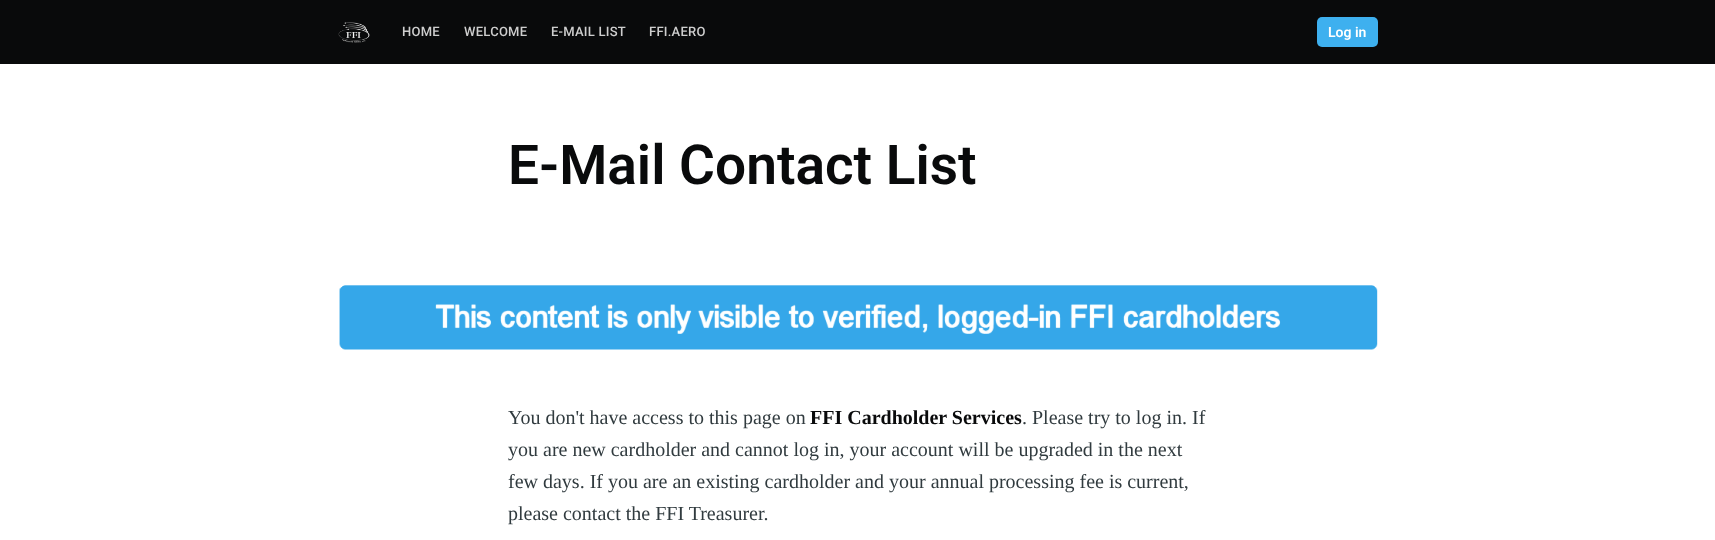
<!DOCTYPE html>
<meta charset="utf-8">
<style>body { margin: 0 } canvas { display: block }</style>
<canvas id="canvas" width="1715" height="540"></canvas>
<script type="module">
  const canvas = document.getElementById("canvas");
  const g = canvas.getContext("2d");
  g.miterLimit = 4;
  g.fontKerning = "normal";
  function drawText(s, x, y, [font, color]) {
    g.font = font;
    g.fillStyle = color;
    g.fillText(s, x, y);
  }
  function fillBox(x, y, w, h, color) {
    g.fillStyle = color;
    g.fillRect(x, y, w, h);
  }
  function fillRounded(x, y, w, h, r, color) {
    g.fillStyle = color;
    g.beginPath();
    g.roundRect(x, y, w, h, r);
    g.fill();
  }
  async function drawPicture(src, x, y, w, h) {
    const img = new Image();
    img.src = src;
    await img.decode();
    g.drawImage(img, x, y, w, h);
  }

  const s1 = ["500 13px Roboto", "#CECECE"];
  const s2 = ["600 14px Roboto", "#FFFFFF"];
  const s3 = ["600 55px Roboto", "#090A0B"];
  const s4 = ["20px Liberation Serif", "#313B3F"];
  const s5 = ["bold 20px Liberation Serif", "#090A0B"];

  fillBox(0, 0, 1715, 540, "#FFFFFF");
  fillBox(0, 0, 1715, 64, "#090A0B");
  await drawPicture("pic1.png", 338, 22, 32, 21);
  g.letterSpacing = "0.25px";
  drawText("HOME", 402, 36, s1);
  drawText("WELCOME", 464, 36, s1);
  drawText("E-MAIL LIST", 551, 36, s1);
  drawText("FFI.AERO", 649, 36, s1);
  fillRounded(1317, 17, 61, 30, 5, "#3EB0EF");
  g.letterSpacing = "0px";
  drawText("Log in", 1328, 37, s2);
  drawText("E-Mail Contact List", 508, 184, s3);
  await drawPicture("pic2.png", 338, 283, 1040, 68);
  drawText("You don't have access to this page on", 508, 424, s4);
  drawText("FFI Cardholder Services", 810, 424, s5);
  drawText(". Please try to log in. If", 1022, 424, s4);
  drawText("you are new cardholder and cannot log in, your account will be upgraded in the next", 508, 456, s4);
  drawText("few days. If you are an existing cardholder and your annual processing fee is current,", 508, 488, s4);
  drawText("please contact the FFI Treasurer.", 508, 520, s4);
</script>
